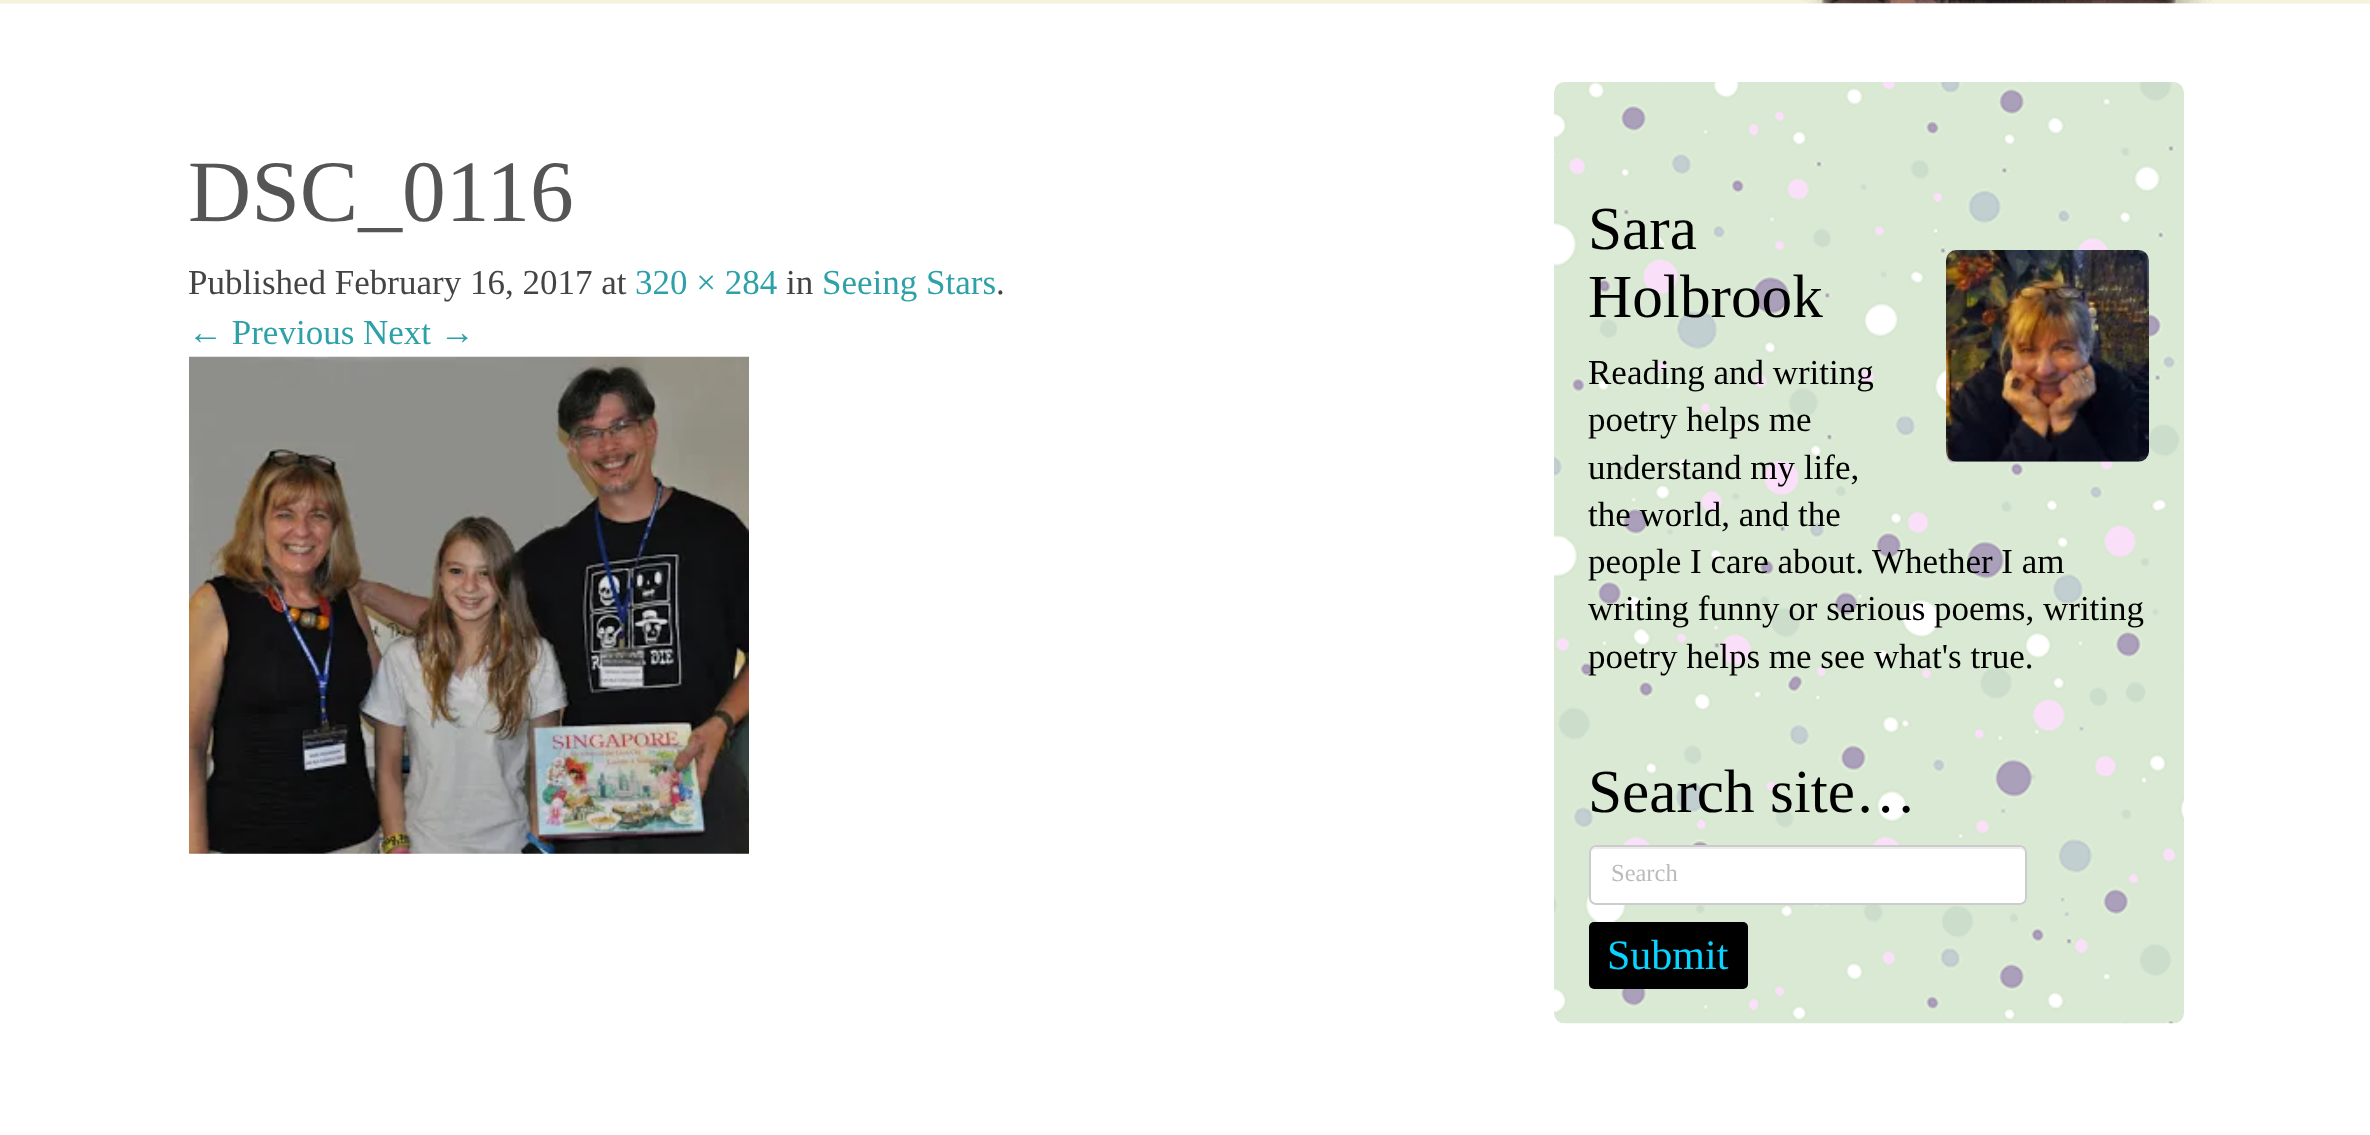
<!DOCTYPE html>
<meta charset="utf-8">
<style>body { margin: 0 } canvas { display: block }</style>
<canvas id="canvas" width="2370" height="1135"></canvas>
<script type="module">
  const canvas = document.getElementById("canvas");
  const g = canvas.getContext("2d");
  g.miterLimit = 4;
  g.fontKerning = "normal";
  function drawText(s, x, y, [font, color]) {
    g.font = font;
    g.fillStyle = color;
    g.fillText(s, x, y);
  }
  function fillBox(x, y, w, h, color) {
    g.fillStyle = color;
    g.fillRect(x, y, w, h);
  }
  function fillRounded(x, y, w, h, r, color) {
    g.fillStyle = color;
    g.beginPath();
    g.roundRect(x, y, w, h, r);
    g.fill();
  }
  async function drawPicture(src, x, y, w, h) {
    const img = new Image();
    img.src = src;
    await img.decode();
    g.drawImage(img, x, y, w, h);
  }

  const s1 = ["87.5px Liberation Serif", "#555555"];
  const s2 = ["35px Liberation Serif", "#444444"];
  const s3 = ["35px Liberation Serif", "#2EA1A8"];
  const s4 = ["61.25px Liberation Serif", "#000000"];
  const s5 = ["35px Liberation Serif", "#000000"];
  const s6 = ["24.5px Liberation Serif", "#BBBBBB"];
  const s7 = ["42px Liberation Serif", "#0AD3FF"];

  fillBox(0, 0, 2370, 1135, "#FFFFFF");
  fillBox(0, 3, 2370, 1, "#F0FAFC");
  await drawPicture("pic1.png", 0, 0, 2370, 4);
  drawText("DSC_0116", 188, 221, s1);
  drawText("Published February 16, 2017 at", 188, 294, s2);
  drawText("320 × 284", 635, 294, s3);
  drawText("in", 786, 294, s2);
  drawText("Seeing Stars", 822, 294, s3);
  drawText(".", 996, 294, s2);
  drawText("← Previous Next →", 188, 344, s3);
  await drawPicture("pic2.png", 189, 356, 560, 498);
  await drawPicture("pic3.png", 1554, 82, 630, 942);
  drawText("Sara", 1588, 249, s4);
  drawText("Holbrook", 1588, 317, s4);
  await drawPicture("pic4.png", 1946, 250, 203, 212);
  drawText("Reading and writing", 1588, 384, s5);
  drawText("poetry helps me", 1588, 431, s5);
  drawText("understand my life,", 1588, 479, s5);
  drawText("the world, and the", 1588, 526, s5);
  drawText("people I care about. Whether I am", 1588, 573, s5);
  drawText("writing funny or serious poems, writing", 1588, 620, s5);
  drawText("poetry helps me see what's true.", 1588, 668, s5);
  drawText("Search site…", 1588, 812, s4);
  fillRounded(1589, 845, 438, 60, 7, "#FFFFFF");
  g.fillStyle = "#ECECEC";
  g.beginPath();
  g.moveTo(1596, 849);
  g.lineTo(2020, 849);
  g.bezierCurveTo(2022, 849, 2025, 851, 2025, 854);
  g.bezierCurveTo(2025, 851, 2024, 847, 2020, 847);
  g.lineTo(1596, 847);
  g.bezierCurveTo(1592, 847, 1591, 851, 1591, 854);
  g.bezierCurveTo(1591, 851, 1593, 849, 1596, 849);
  g.closePath();
  g.fill();
  g.beginPath();
  g.roundRect(1590, 846, 436, 58, 6);
  g.strokeStyle = "#CCCCCC";
  g.lineWidth = 2;
  g.stroke();
  drawText("Search", 1611, 881, s6);
  fillRounded(1589, 922, 159, 67, 5, "#000000");
  drawText("Submit", 1607, 969, s7);
</script>
